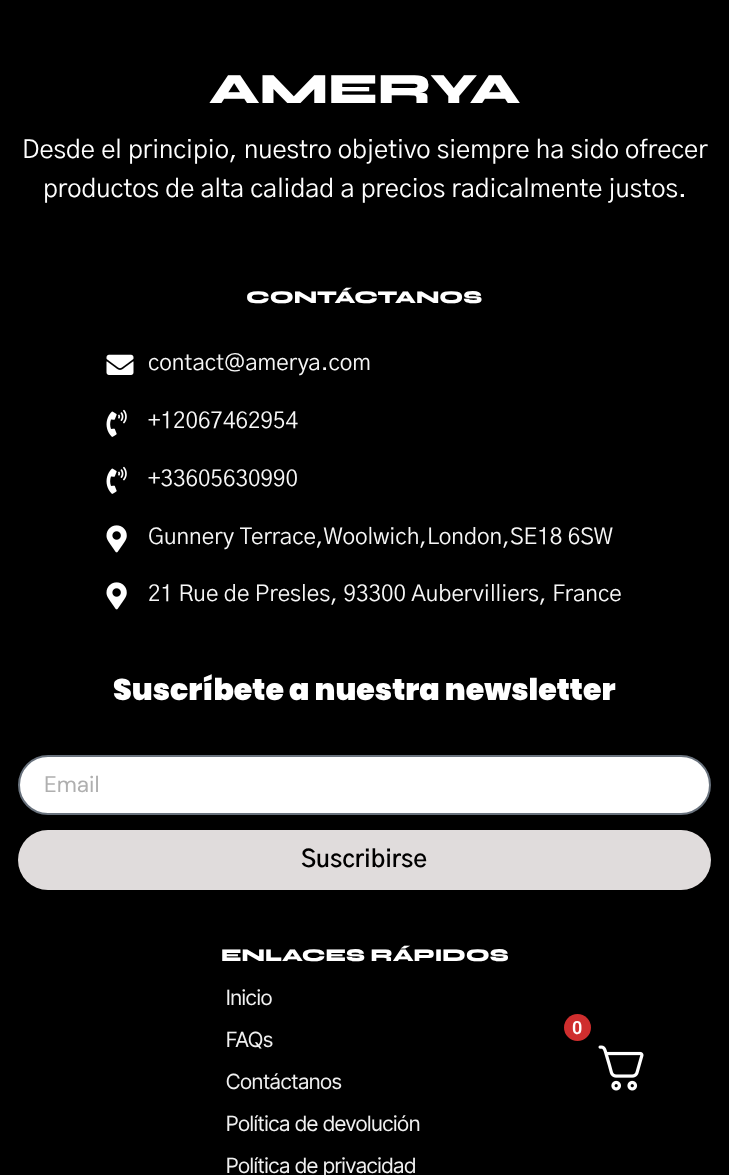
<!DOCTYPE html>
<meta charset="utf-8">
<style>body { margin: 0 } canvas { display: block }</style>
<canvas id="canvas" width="729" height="1175"></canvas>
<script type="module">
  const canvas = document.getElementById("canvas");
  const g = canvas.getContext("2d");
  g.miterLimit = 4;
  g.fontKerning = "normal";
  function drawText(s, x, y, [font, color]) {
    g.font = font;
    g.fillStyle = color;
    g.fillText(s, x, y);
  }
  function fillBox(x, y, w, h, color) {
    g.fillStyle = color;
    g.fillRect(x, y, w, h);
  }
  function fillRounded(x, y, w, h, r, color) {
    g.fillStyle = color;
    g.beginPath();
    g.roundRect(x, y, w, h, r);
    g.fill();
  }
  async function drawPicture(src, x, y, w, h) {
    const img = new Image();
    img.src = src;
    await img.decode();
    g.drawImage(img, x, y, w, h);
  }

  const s1 = ["800 43.5px Syne", "#FFFFFF"];
  const s2 = ["25.5px 'Gothic A1'", "#FFFFFF"];
  const s3 = ["800 18px Syne", "#FFFFFF"];
  const s4 = ["22.5px 'Gothic A1'", "#F7F7F7"];
  const s5 = ["900 30px Poppins", "#FFFFFF"];
  const s6 = ["22.5px DM Sans", "#AFAFAF"];
  const s7 = ["600 24px 'Gothic A1'", "#000000"];
  const s8 = ["21px Inter Tight", "#F0F0F0"];
  const s9 = ["600 18px Roboto", "#FFFFFF"];

  fillBox(0, 0, 729, 1175, "#000000");
  drawText("AMERYA", 209, 103, s1);
  drawText("Desde el principio, nuestro objetivo siempre ha sido ofrecer", 22, 158, s2);
  drawText("productos de alta calidad a precios radicalmente justos.", 43, 197, s2);
  drawText("CONTÁCTANOS", 246, 303, s3);
  await drawPicture("pic1.png", 106, 354, 28, 21);
  drawText("contact@amerya.com", 148, 370, s4);
  await drawPicture("pic2.png", 106, 409, 21, 28);
  drawText("+12067462954", 148, 428, s4);
  await drawPicture("pic2.png", 106, 466, 21, 28);
  drawText("+33605630990", 148, 486, s4);
  await drawPicture("pic3.png", 106, 525, 21, 28);
  drawText("Gunnery Terrace,Woolwich,London,SE18 6SW", 148, 544, s4);
  await drawPicture("pic3.png", 106, 582, 21, 28);
  drawText("21 Rue de Presles, 93300 Aubervilliers, France", 148, 601, s4);
  drawText("Suscríbete a nuestra newsletter", 113, 700, s5);
  g.beginPath();
  g.roundRect(19, 756, 691, 58, 29);
  g.fill();
  g.strokeStyle = "#69727D";
  g.lineWidth = 2;
  g.stroke();
  drawText("Email", 44, 792, s6);
  fillRounded(18, 830, 693, 60, 30, "#E0DCDC");
  drawText("Suscribirse", 301, 867, s7);
  drawText("ENLACES RÁPIDOS", 221, 961, s3);
  drawText("Inicio", 226, 1005, s8);
  drawText("FAQs", 226, 1047, s8);
  drawText("Contáctanos", 226, 1089, s8);
  drawText("Política de devolución", 226, 1131, s8);
  drawText("Política de privacidad", 226, 1173, s8);
  g.fillStyle = "#CF2E2E";
  g.beginPath();
  g.arc(577.5, 1027.5, 13.5, 0, Math.PI * 2);
  g.fill();
  drawText("0", 572, 1034, s9);
  await drawPicture("pic4.png", 598, 1045, 46, 46);
</script>
